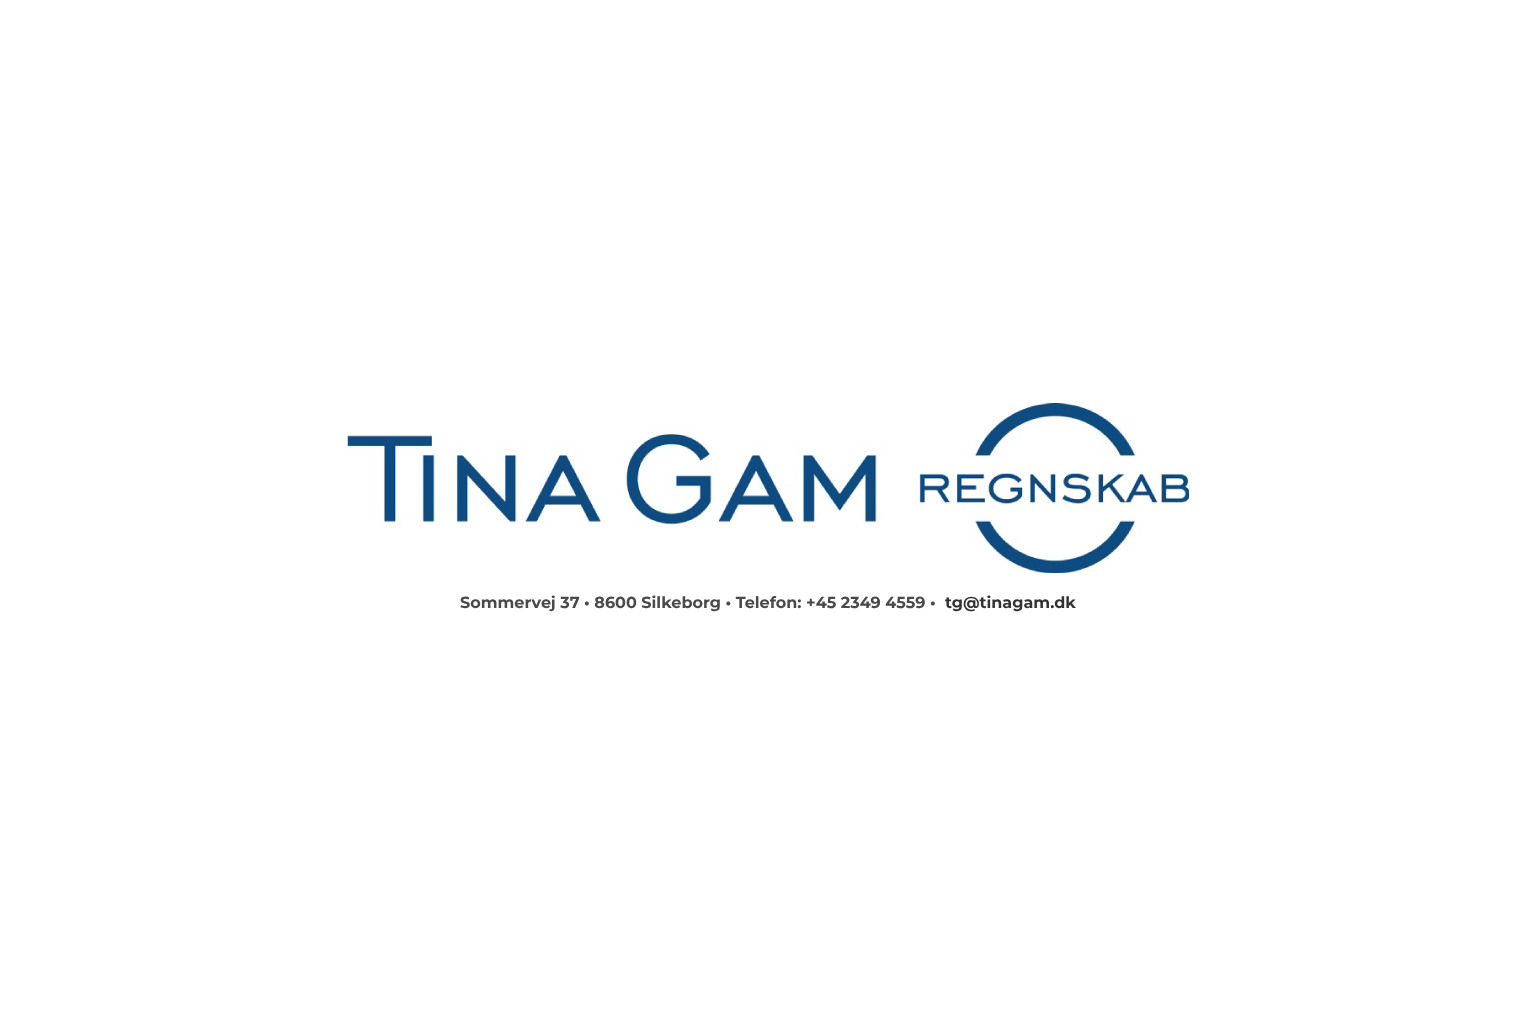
<!DOCTYPE html>
<meta charset="utf-8">
<style>body { margin: 0 } canvas { display: block }</style>
<canvas id="canvas" width="1536" height="1033"></canvas>
<script type="module">
  const canvas = document.getElementById("canvas");
  const g = canvas.getContext("2d");
  g.miterLimit = 4;
  g.fontKerning = "normal";
  function drawText(s, x, y, [font, color]) {
    g.font = font;
    g.fillStyle = color;
    g.fillText(s, x, y);
  }
  function fillBox(x, y, w, h, color) {
    g.fillStyle = color;
    g.fillRect(x, y, w, h);
  }
  async function drawPicture(src, x, y, w, h) {
    const img = new Image();
    img.src = src;
    await img.decode();
    g.drawImage(img, x, y, w, h);
  }

  const s1 = ["bold 16px Montserrat", "#4A4A4A"];
  const s2 = ["bold 16px Montserrat", "#333333"];

  fillBox(0, 0, 1536, 1033, "#FFFFFF");
  await drawPicture("pic1.png", 347, 403, 842, 170);
  drawText("Sommervej 37 • 8600 Silkeborg • Telefon: +45 2349 4559 •", 460, 608, s1);
  drawText("tg@tinagam.dk", 945, 608, s2);
</script>
